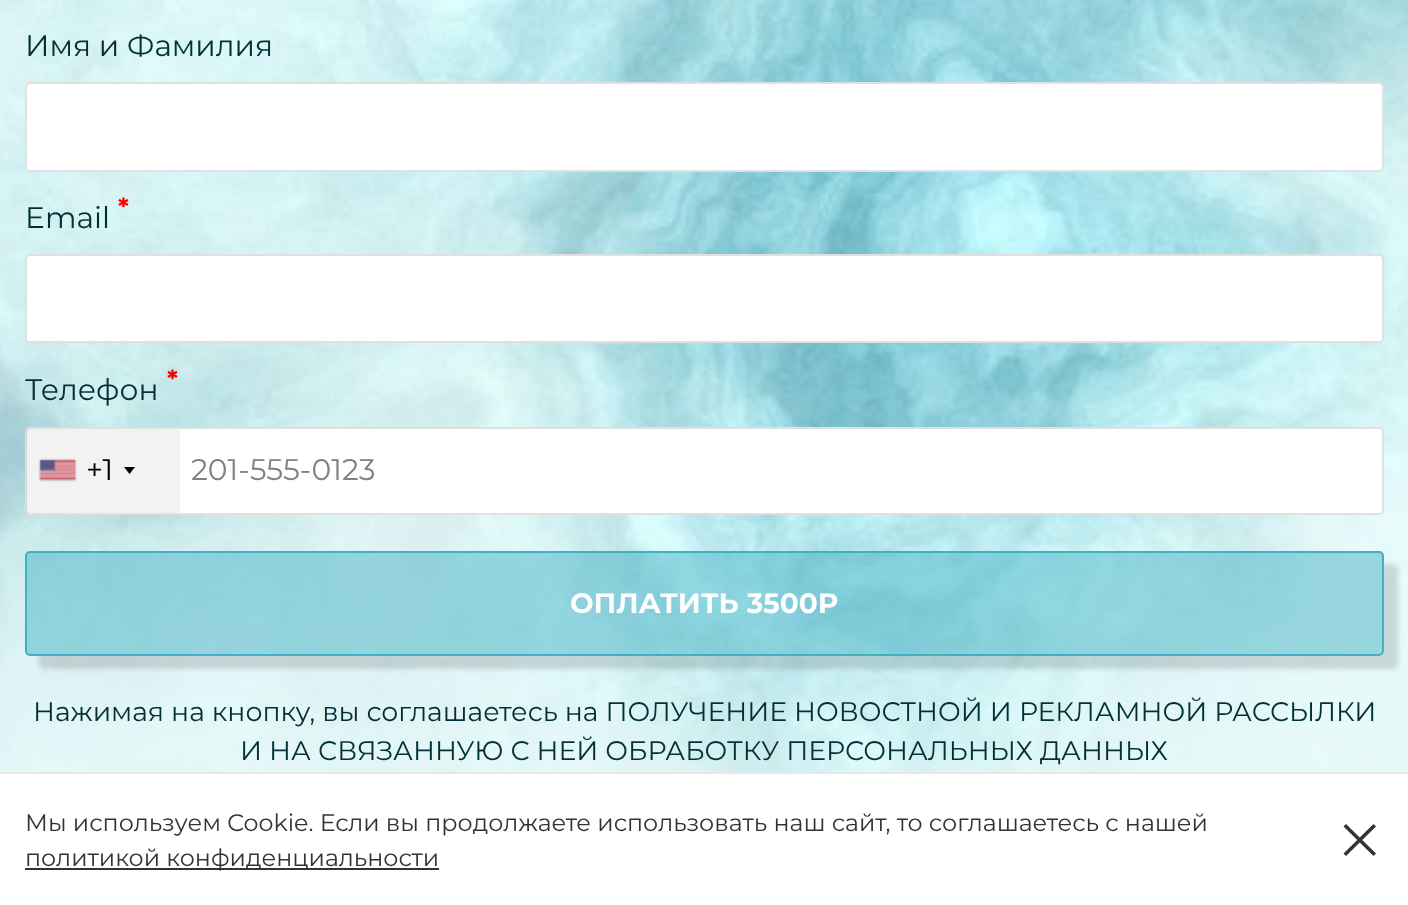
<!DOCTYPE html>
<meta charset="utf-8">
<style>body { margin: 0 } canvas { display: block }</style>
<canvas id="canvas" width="1408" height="905"></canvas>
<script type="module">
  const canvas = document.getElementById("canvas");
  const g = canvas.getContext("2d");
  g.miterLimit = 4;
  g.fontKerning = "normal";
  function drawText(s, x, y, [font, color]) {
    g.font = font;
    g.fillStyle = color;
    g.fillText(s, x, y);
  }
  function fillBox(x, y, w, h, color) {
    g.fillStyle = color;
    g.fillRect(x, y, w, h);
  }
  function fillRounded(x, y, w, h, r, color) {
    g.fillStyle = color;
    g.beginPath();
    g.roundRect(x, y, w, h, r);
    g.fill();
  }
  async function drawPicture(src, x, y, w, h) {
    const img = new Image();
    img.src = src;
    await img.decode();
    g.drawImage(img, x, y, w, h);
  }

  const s1 = ["29.75px Montserrat", "#023037"];
  const s2 = ["bold 25px Montserrat", "#FF0000"];
  const s3 = ["29.75px Montserrat", "#000000"];
  const s4 = ["29.75px Montserrat", "#808080"];
  const s5 = ["bold 28px Montserrat", "#FFFFFF"];
  const s6 = ["26.78px Montserrat", "#023037"];
  const s7 = ["23.8px Montserrat", "#333333"];

  fillBox(0, 0, 1408, 905, "#FFFFFF");
  await drawPicture("pic1.png", 0, 0, 1408, 905);
  drawText("Имя и Фамилия", 25, 56, s1);
  fillRounded(25, 82, 1359, 90, 5, "#FFFFFF");
  g.beginPath();
  g.roundRect(26, 83, 1357, 88, 4);
  g.strokeStyle = "rgba(0, 0, 0, 0.12)";
  g.lineWidth = 2;
  g.stroke();
  drawText("*", 118, 216, s2);
  drawText("Email", 25, 228, s1);
  fillRounded(25, 254, 1359, 89, 5, "#FFFFFF");
  g.beginPath();
  g.roundRect(26, 255, 1357, 87, 4);
  g.stroke();
  drawText("*", 167, 388, s2);
  drawText("Телефон", 25, 400, s1);
  fillRounded(25, 427, 1359, 88, 5, "#FFFFFF");
  g.beginPath();
  g.roundRect(26, 428, 1357, 86, 4);
  g.stroke();
  fillBox(26, 429, 154, 84, "rgba(0, 0, 0, 0.05)");
  g.fillStyle = "#888888";
  g.filter = "blur(1px)";
  g.beginPath();
  g.rect(40, 460, 35, 20);
  g.fill();
  g.filter = "none";
  fillBox(40, 460, 35, 20, "#DBDBDB");
  await drawPicture("pic2.png", 40, 460, 36, 20);
  drawText("+1", 86, 480, s3);
  g.beginPath();
  g.moveTo(124, 467);
  g.lineTo(135, 467);
  g.lineTo(129.5, 474);
  g.closePath();
  g.fill();
  drawText("201-555-0123", 191, 480, s4);
  g.save();
  g.beginPath();
  g.moveTo(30, 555);
  g.lineTo(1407, 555);
  g.lineTo(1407, 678);
  g.lineTo(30, 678);
  g.closePath();
  g.moveTo(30, 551);
  g.lineTo(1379, 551);
  g.bezierCurveTo(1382, 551, 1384, 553, 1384, 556);
  g.lineTo(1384, 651);
  g.bezierCurveTo(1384, 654, 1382, 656, 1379, 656);
  g.lineTo(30, 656);
  g.bezierCurveTo(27, 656, 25, 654, 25, 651);
  g.lineTo(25, 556);
  g.bezierCurveTo(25, 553, 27, 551, 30, 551);
  g.closePath();
  g.clip("evenodd");
  g.fillStyle = "rgba(73, 80, 87, 0.2)";
  g.filter = "blur(2.5px)";
  g.beginPath();
  g.roundRect(39, 564, 1359, 105, 5);
  g.fill();
  g.filter = "none";
  g.restore();
  g.fillStyle = "rgba(64, 176, 194, 0.48)";
  g.beginPath();
  g.roundRect(26, 552, 1357, 103, 4);
  g.fill();
  g.strokeStyle = "#40B0C2";
  g.stroke();
  drawText("ОПЛАТИТЬ 3500Р", 570, 613, s5);
  drawText("Нажимая на кнопку, вы соглашаетесь на ПОЛУЧЕНИЕ НОВОСТНОЙ И РЕКЛАМНОЙ РАССЫЛКИ", 33, 721, s6);
  drawText("И НА СВЯЗАННУЮ С НЕЙ ОБРАБОТКУ ПЕРСОНАЛЬНЫХ ДАННЫХ", 240, 760, s6);
  fillBox(0, 774, 1408, 131, "rgba(255, 255, 255, 0.97)");
  fillBox(0, 772, 1408, 2, "#E7E7E7");
  drawText("Мы используем Cookie. Если вы продолжаете использовать наш сайт, то соглашаетесь с нашей", 25, 831, s7);
  fillBox(25, 868, 414, 2, "#333333");
  drawText("политикой конфиденциальности", 25, 866, s7);
  g.beginPath();
  g.moveTo(1346, 824);
  g.lineTo(1376, 853.5);
  g.lineTo(1373.5, 856);
  g.lineTo(1343.5, 826.5);
  g.closePath();
  g.fill();
  g.beginPath();
  g.moveTo(1373.5, 824);
  g.lineTo(1376, 826.5);
  g.lineTo(1346, 856);
  g.lineTo(1343.5, 853.5);
  g.closePath();
  g.fill();
</script>
